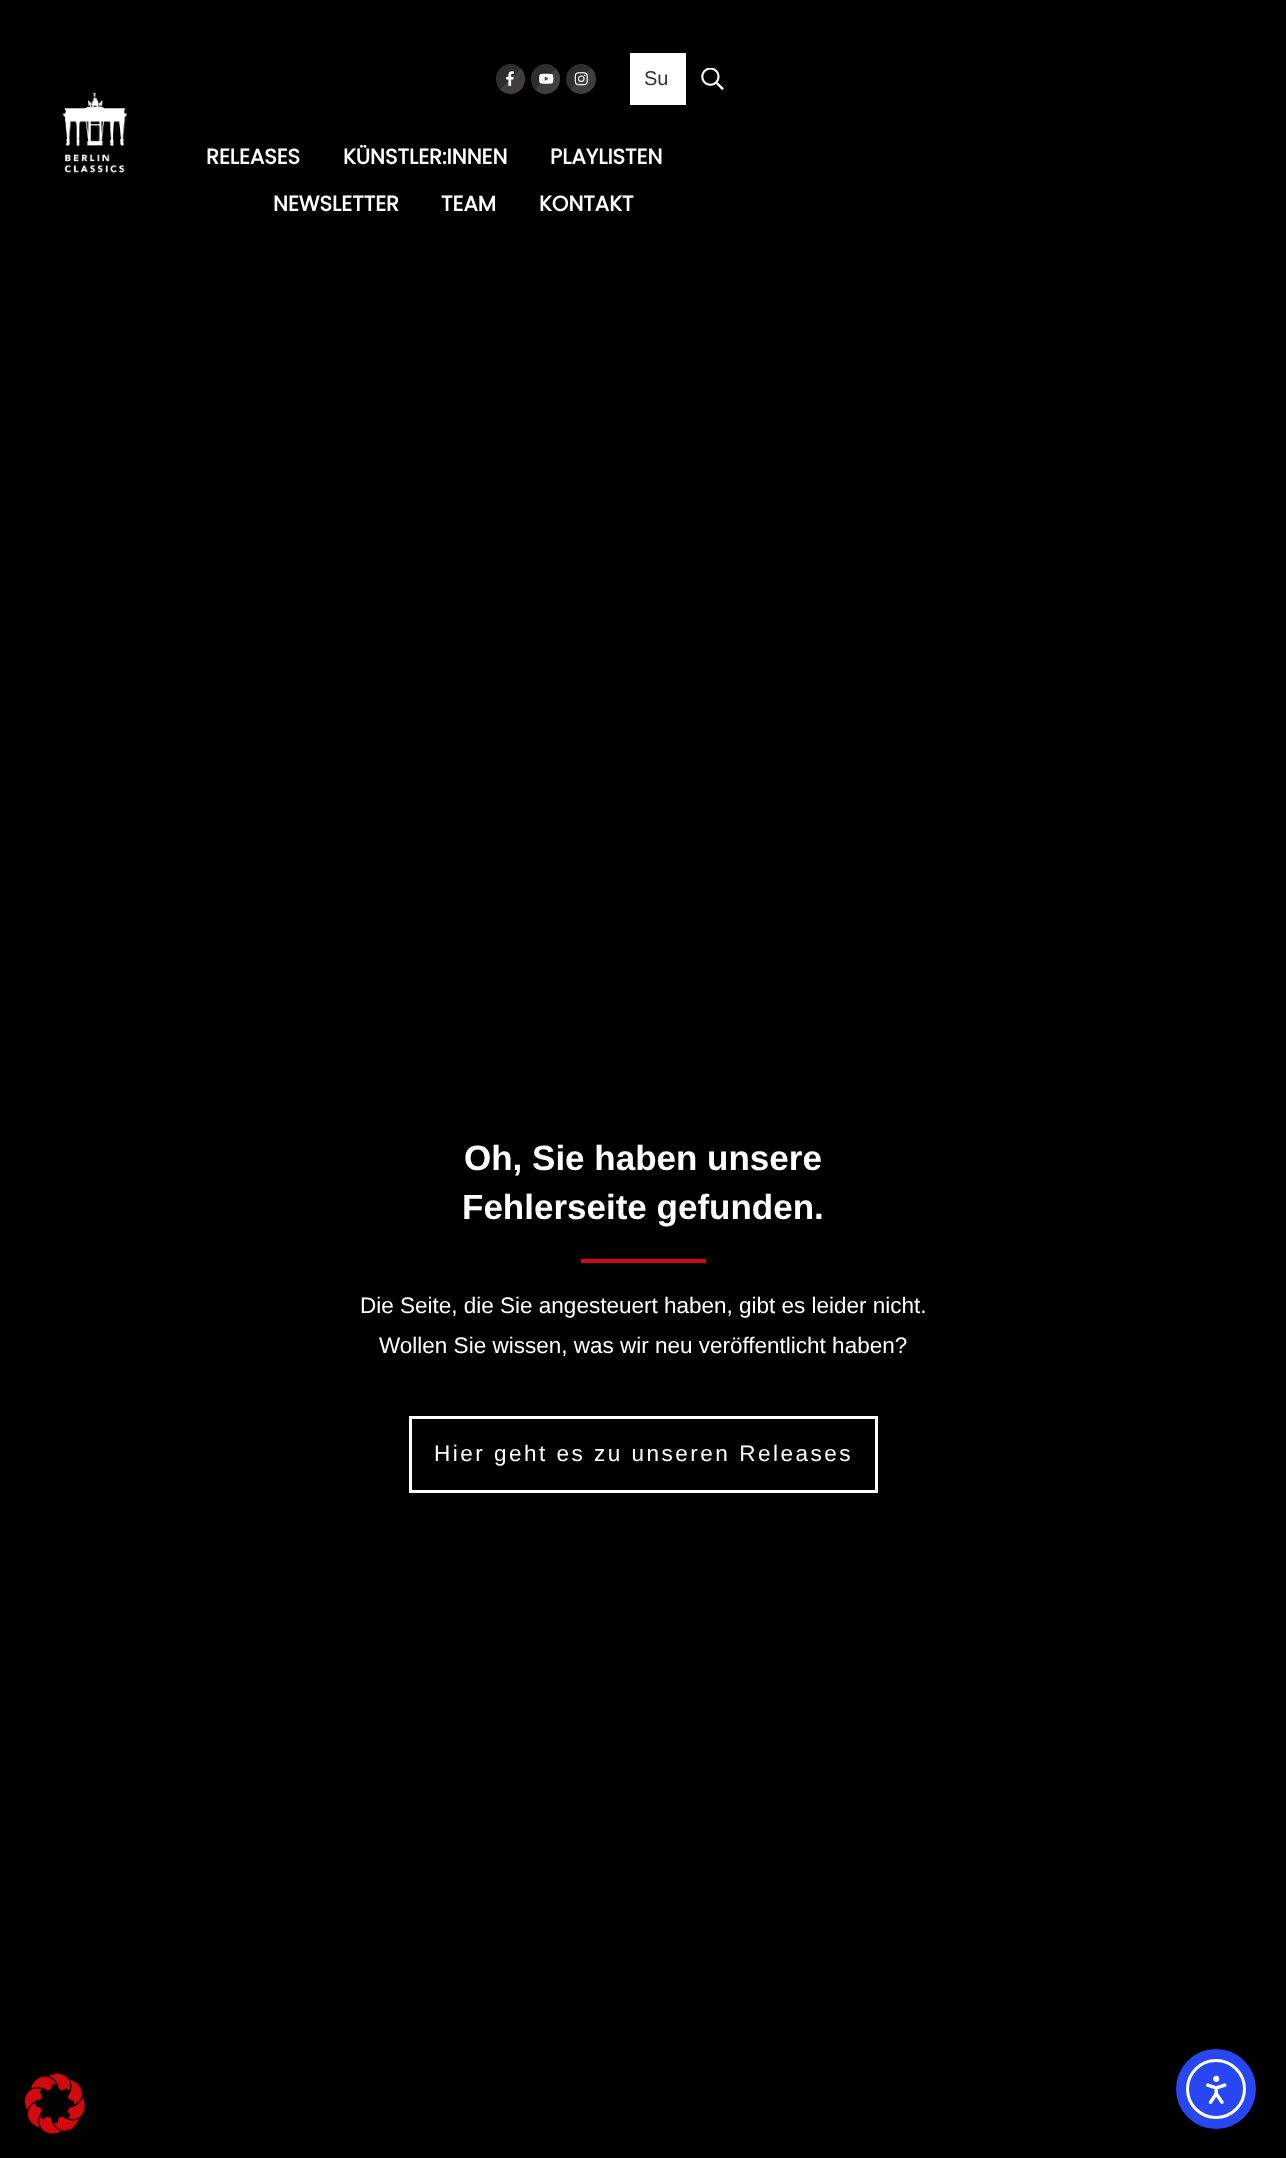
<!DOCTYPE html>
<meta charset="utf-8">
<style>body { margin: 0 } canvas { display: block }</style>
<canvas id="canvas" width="1286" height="2158"></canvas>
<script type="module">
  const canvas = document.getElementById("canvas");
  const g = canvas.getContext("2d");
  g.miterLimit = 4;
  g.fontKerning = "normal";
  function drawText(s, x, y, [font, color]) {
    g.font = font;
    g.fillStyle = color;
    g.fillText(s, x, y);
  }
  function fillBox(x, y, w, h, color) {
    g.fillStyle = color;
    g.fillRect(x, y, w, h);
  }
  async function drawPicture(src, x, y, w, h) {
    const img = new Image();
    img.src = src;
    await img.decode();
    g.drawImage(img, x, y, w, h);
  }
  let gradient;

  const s1 = ["20px Liberation Sans", "#333333"];
  const s2 = ["bold 21.25px Poppins", "#FFFFFF"];
  const s3 = ["bold 35px Liberation Sans", "#FFFFFF"];
  const s4 = ["22.5px Liberation Sans", "#FFFFFF"];

  fillBox(0, 0, 1286, 2158, "#000000");
  await drawPicture("pic1.png", 62, 92, 65, 81);
  gradient = g.createLinearGradient(496, 64, 526, 93);
  gradient.addColorStop(0.5, "#302D2D");
  gradient.addColorStop(0.5, "#433E3E");
  g.fillStyle = gradient;
  g.beginPath();
  g.roundRect(496, 64, 29, 30, 14.5);
  g.fill();
  await drawPicture("pic2.png", 506, 71, 8, 15);
  gradient = g.createLinearGradient(531, 64, 561, 93);
  gradient.addColorStop(0.5, "#302D2D");
  gradient.addColorStop(0.5, "#433E3E");
  g.fillStyle = gradient;
  g.beginPath();
  g.roundRect(531, 64, 29, 30, 14.5);
  g.fill();
  await drawPicture("pic3.png", 539, 73, 15, 11);
  gradient = g.createLinearGradient(566, 64, 596, 94);
  gradient.addColorStop(0.5, "#302D2D");
  gradient.addColorStop(0.5, "#433E3E");
  g.fillStyle = gradient;
  g.beginPath();
  g.arc(581, 79, 15, 0, Math.PI * 2);
  g.fill();
  await drawPicture("pic4.png", 574, 72, 14, 14);
  fillBox(630, 53, 56, 52, "#FFFFFF");
  drawText("Su", 644, 85, s1);
  await drawPicture("pic5.png", 701, 68, 23, 22);
  drawText("RELEASES", 206, 164, s2);
  drawText("KÜNSTLER:INNEN", 343, 164, s2);
  drawText("PLAYLISTEN", 550, 164, s2);
  drawText("NEWSLETTER", 273, 211, s2);
  drawText("TEAM", 441, 211, s2);
  drawText("KONTAKT", 539, 211, s2);
  drawText("Oh, Sie haben unsere", 464, 1170, s3);
  drawText("Fehlerseite gefunden.", 462, 1219, s3);
  fillBox(581, 1259, 125, 4, "#D20A10");
  drawText("Die Seite, die Sie angesteuert haben, gibt es leider nicht.", 360, 1313, s4);
  drawText("Wollen Sie wissen, was wir neu veröffentlicht haben?", 379, 1353, s4);
  g.strokeStyle = "#FFFFFF";
  g.lineWidth = 3;
  g.strokeRect(410.5, 1417.5, 466, 74);
  g.letterSpacing = "2.5px";
  drawText("Hier geht es zu unseren Releases", 434, 1461, s4);
  await drawPicture("pic6.png", 25, 2073, 60, 61);
  g.fillStyle = "#2847F3";
  g.beginPath();
  g.arc(1216, 2089, 40, 0, Math.PI * 2);
  g.fill();
  g.beginPath();
  g.arc(1216, 2089, 28.5, 0, Math.PI * 2);
  g.stroke();
  await drawPicture("pic7.png", 1206, 2075, 21, 29);
</script>
